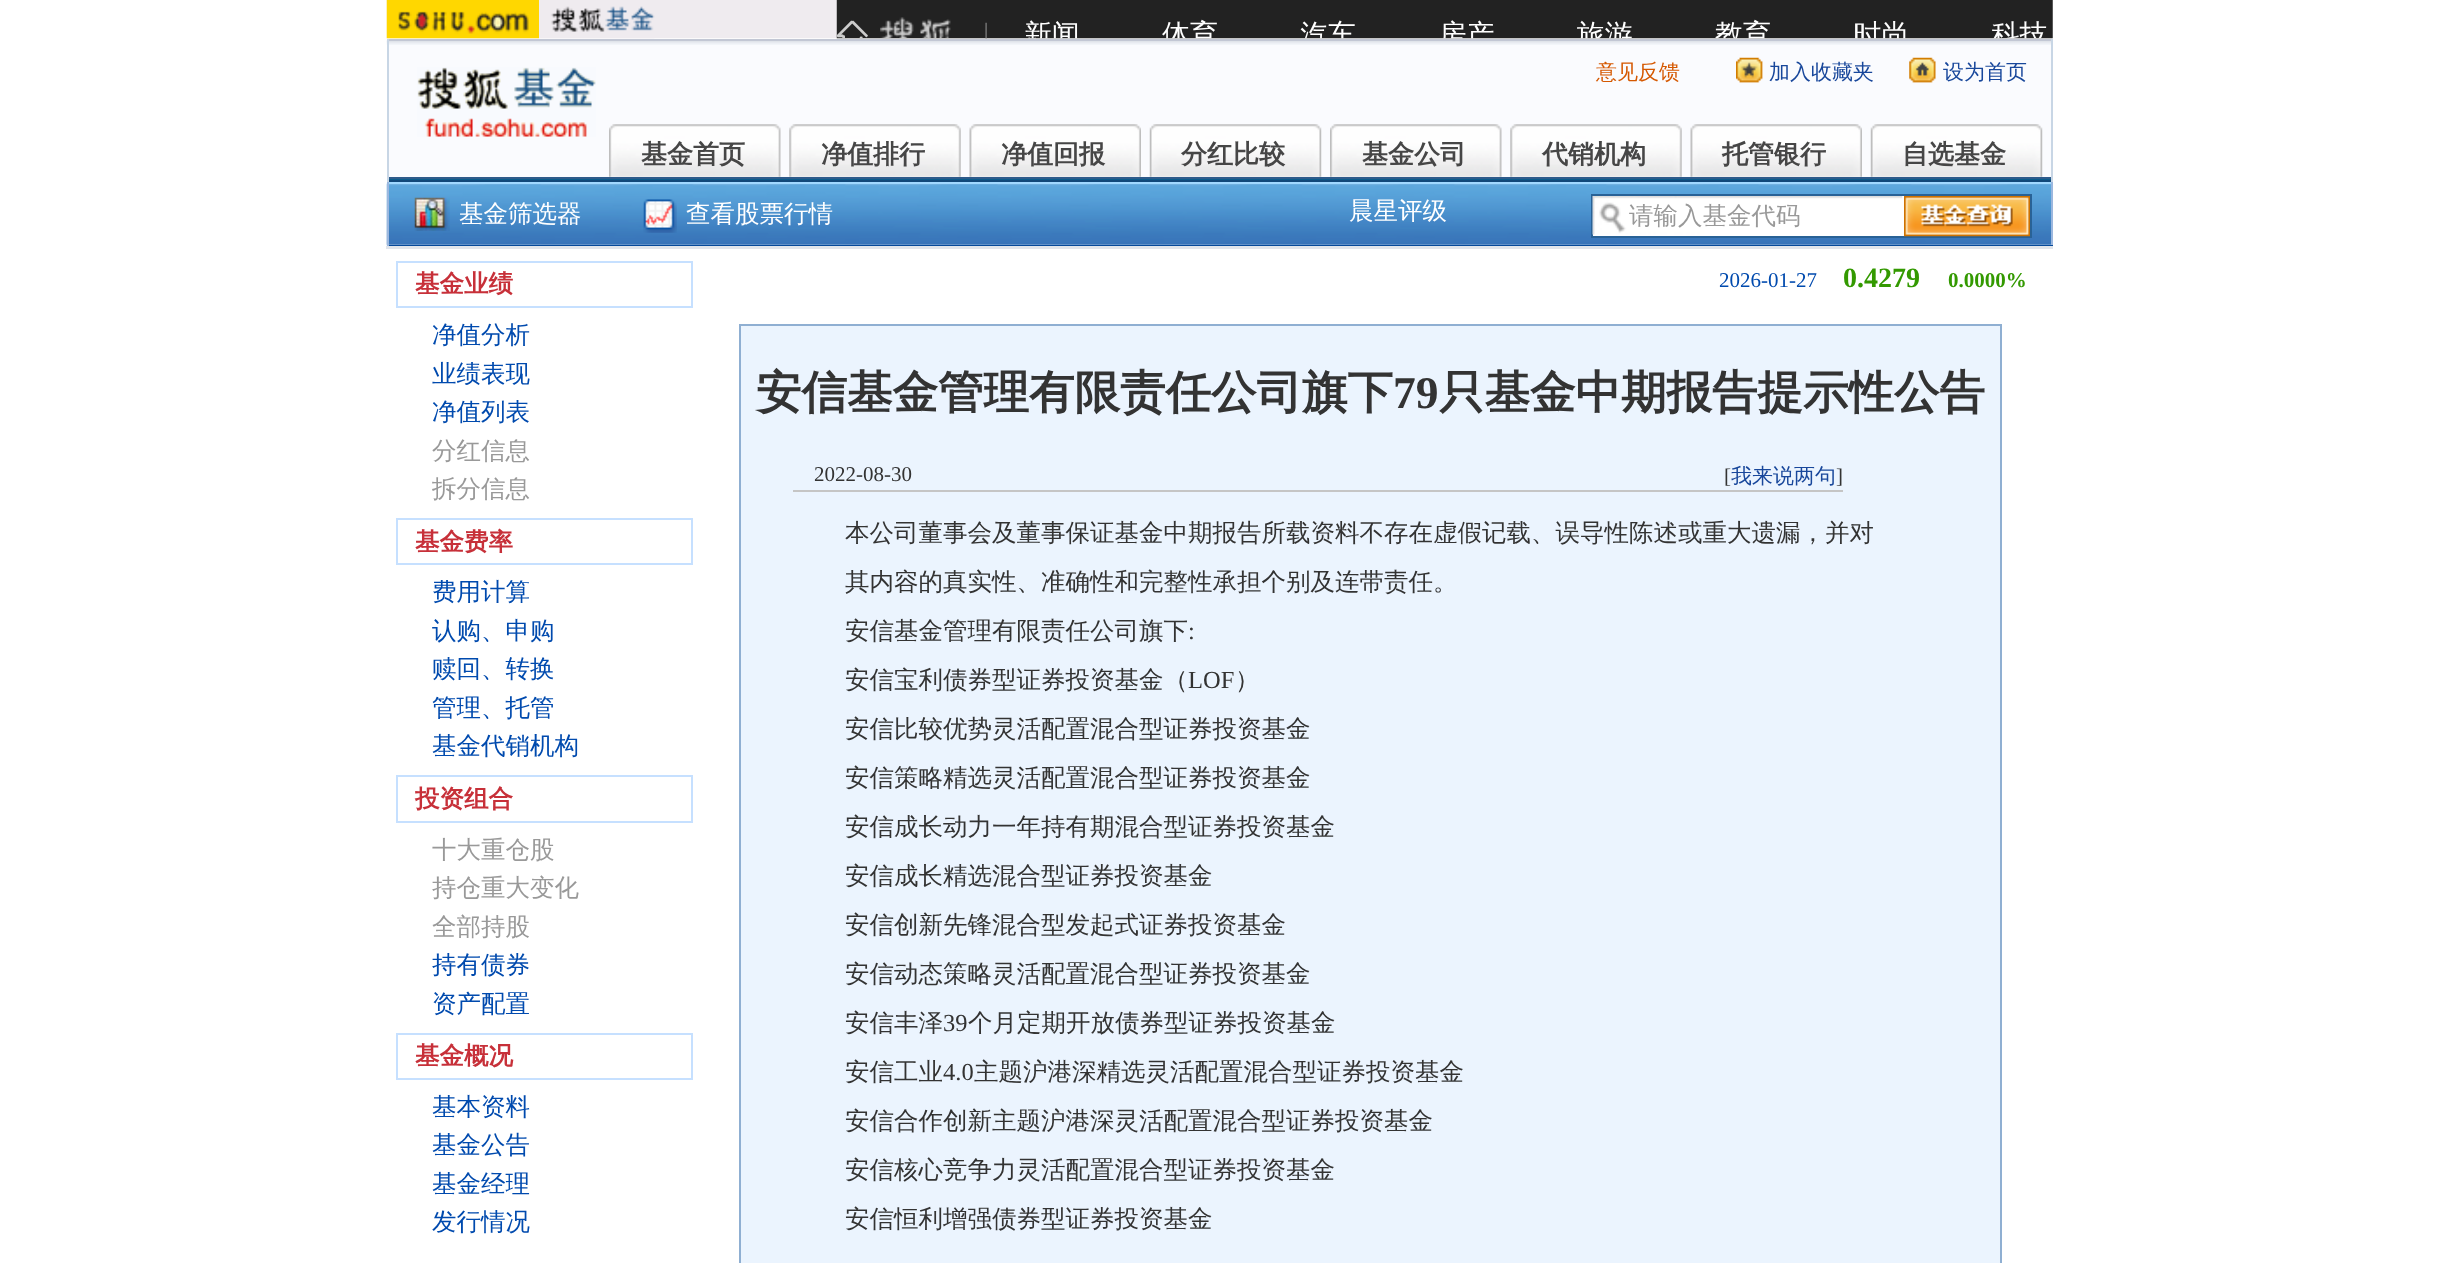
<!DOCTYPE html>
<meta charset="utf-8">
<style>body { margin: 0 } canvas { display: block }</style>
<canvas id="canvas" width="2439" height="1263"></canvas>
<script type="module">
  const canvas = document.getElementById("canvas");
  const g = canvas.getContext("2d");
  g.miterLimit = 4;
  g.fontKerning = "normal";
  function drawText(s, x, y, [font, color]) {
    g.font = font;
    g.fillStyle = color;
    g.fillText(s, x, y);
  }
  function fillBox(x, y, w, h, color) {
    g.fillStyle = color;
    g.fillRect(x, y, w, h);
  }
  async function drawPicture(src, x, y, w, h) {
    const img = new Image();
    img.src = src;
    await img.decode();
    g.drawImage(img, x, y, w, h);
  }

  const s1 = ["500 21px WenQuanYi Zen Hei", "#D55800"];
  const s2 = ["500 21px WenQuanYi Zen Hei", "#18479B"];
  const s3 = ["bold 26px WenQuanYi Zen Hei", "#464646"];
  const s4 = ["500 24.5px WenQuanYi Zen Hei", "#FFFFFF"];
  const s5 = ["500 24.5px WenQuanYi Zen Hei", "#999999"];
  const s6 = ["bold 24.5px WenQuanYi Zen Hei", "#C73039"];
  const s7 = ["500 24.5px WenQuanYi Zen Hei", "#004AAE"];
  const s8 = ["21px Liberation Serif", "#004AAE"];
  const s9 = ["bold 28px Liberation Serif", "#339900"];
  const s10 = ["bold 21px Liberation Serif", "#339900"];
  const s11 = ["bold 45.5px WenQuanYi Zen Hei", "#333333"];
  const s12 = ["bold 45.5px Liberation Serif", "#333333"];
  const s13 = ["21px Liberation Serif", "#333333"];
  const s14 = ["500 24.5px WenQuanYi Zen Hei", "#333333"];
  const s15 = ["24.5px Liberation Serif", "#333333"];

  fillBox(0, 0, 2439, 1263, "#FFFFFF");
  await drawPicture("pic1.png", 386, 0, 1667, 39);
  fillBox(389, 45, 1662, 132, "#FAFBFE");
  await drawPicture("pic2.png", 386, 40, 1665, 5);
  fillBox(387, 39, 1666, 2, "#C2C7D4");
  fillBox(2051, 39, 2, 143, "#C8D6E5");
  fillBox(387, 39, 2, 143, "#C8D6E5");
  await drawPicture("pic3.png", 417, 67, 179, 70);
  drawText("意见反馈", 1596, 79, s1);
  await drawPicture("pic4.png", 1736, 57, 27, 26);
  drawText("加入收藏夹", 1769, 79, s2);
  await drawPicture("pic5.png", 1909, 57, 27, 26);
  drawText("设为首页", 1943, 79, s2);
  await drawPicture("pic6.png", 609, 124, 172, 53);
  drawText("基金首页", 641, 163, s3);
  await drawPicture("pic7.png", 789, 124, 172, 53);
  drawText("净值排行", 821, 163, s3);
  await drawPicture("pic8.png", 969, 124, 172, 53);
  drawText("净值回报", 1001, 163, s3);
  await drawPicture("pic9.png", 1149, 124, 173, 53);
  drawText("分红比较", 1181, 163, s3);
  await drawPicture("pic10.png", 1330, 124, 172, 53);
  drawText("基金公司", 1362, 163, s3);
  await drawPicture("pic11.png", 1510, 124, 172, 53);
  drawText("代销机构", 1542, 163, s3);
  await drawPicture("pic8.png", 1690, 124, 172, 53);
  drawText("托管银行", 1722, 163, s3);
  await drawPicture("pic12.png", 1870, 124, 173, 53);
  drawText("自选基金", 1902, 163, s3);
  fillBox(389, 179, 1662, 1, "#0B5C8C");
  fillBox(389, 177, 1662, 2, "#2E5B8B");
  fillBox(389, 180, 1662, 2, "#124879");
  await drawPicture("pic13.png", 386, 182, 1665, 64);
  fillBox(387, 182, 1666, 2, "#A1D8FF");
  fillBox(2051, 182, 2, 65, "#9BB7DE");
  fillBox(387, 245, 1666, 1, "#05499A");
  fillBox(387, 182, 2, 65, "#9BB7DE");
  await drawPicture("pic14.png", 414, 197, 36, 34);
  drawText("基金筛选器", 459, 222, s4);
  await drawPicture("pic15.png", 643, 199, 34, 34);
  drawText("查看股票行情", 686, 222, s4);
  drawText("晨星评级", 1349, 219, s4);
  fillBox(1593, 196, 311, 40, "#FFFFFF");
  g.strokeStyle = "#296296";
  g.lineWidth = 2;
  g.strokeRect(1592, 195, 439, 42);
  await drawPicture("pic16.png", 1592, 196, 311, 39);
  drawText("请输入基金代码", 1629, 224, s5);
  await drawPicture("pic17.png", 1904, 196, 126, 41);
  fillBox(386, 246, 1667, 3, "#E1E5EB");
  g.strokeStyle = "#C6E0FF";
  g.strokeRect(397, 262, 295, 45);
  drawText("基金业绩", 415, 292, s6);
  drawText("净值分析", 432, 343, s7);
  drawText("业绩表现", 432, 382, s7);
  drawText("净值列表", 432, 420, s7);
  drawText("分红信息", 432, 459, s5);
  drawText("拆分信息", 432, 497, s5);
  g.strokeRect(397, 519, 295, 45);
  drawText("基金费率", 415, 550, s6);
  drawText("费用计算", 432, 600, s7);
  drawText("认购、申购", 432, 639, s7);
  drawText("赎回、转换", 432, 677, s7);
  drawText("管理、托管", 432, 716, s7);
  drawText("基金代销机构", 432, 754, s7);
  g.strokeRect(397, 776, 295, 46);
  drawText("投资组合", 415, 807, s6);
  drawText("十大重仓股", 432, 858, s5);
  drawText("持仓重大变化", 432, 896, s5);
  drawText("全部持股", 432, 935, s5);
  drawText("持有债券", 432, 973, s7);
  drawText("资产配置", 432, 1012, s7);
  g.strokeRect(397, 1034, 295, 45);
  drawText("基金概况", 415, 1064, s6);
  drawText("基本资料", 432, 1115, s7);
  drawText("基金公告", 432, 1153, s7);
  drawText("基金经理", 432, 1192, s7);
  drawText("发行情况", 432, 1230, s7);
  drawText("2026-01-27", 1719, 287, s8);
  drawText("0.4279", 1843, 287, s9);
  drawText("0.0000%", 1948, 287, s10);
  g.fillStyle = "#EBF4FE";
  g.beginPath();
  g.rect(740, 325, 1261, 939);
  g.fill();
  g.strokeStyle = "#8FAFD2";
  g.stroke();
  drawText("安信基金管理有限责任公司旗下", 756, 408, s11);
  drawText("79", 1393, 408, s12);
  drawText("只基金中期报告提示性公告", 1439, 408, s11);
  fillBox(793, 490, 1050, 2, "#C5C5C5");
  drawText("2022-08-30", 814, 481, s13);
  drawText("[", 1724, 483, s13);
  drawText("我来说两句", 1731, 483, s2);
  drawText("]", 1836, 483, s13);
  drawText("本公司董事会及董事保证基金中期报告所载资料不存在虚假记载、误导性陈述或重大遗漏，并对", 845, 541, s14);
  drawText("其内容的真实性、准确性和完整性承担个别及连带责任。", 845, 590, s14);
  drawText("安信基金管理有限责任公司旗下", 845, 639, s14);
  drawText(":", 1188, 639, s15);
  drawText("安信宝利债券型证券投资基金（", 845, 688, s14);
  drawText("LOF", 1188, 688, s15);
  drawText("）", 1235, 688, s14);
  drawText("安信比较优势灵活配置混合型证券投资基金", 845, 737, s14);
  drawText("安信策略精选灵活配置混合型证券投资基金", 845, 786, s14);
  drawText("安信成长动力一年持有期混合型证券投资基金", 845, 835, s14);
  drawText("安信成长精选混合型证券投资基金", 845, 884, s14);
  drawText("安信创新先锋混合型发起式证券投资基金", 845, 933, s14);
  drawText("安信动态策略灵活配置混合型证券投资基金", 845, 982, s14);
  drawText("安信丰泽", 845, 1031, s14);
  drawText("39", 943, 1031, s15);
  drawText("个月定期开放债券型证券投资基金", 968, 1031, s14);
  drawText("安信工业", 845, 1080, s14);
  drawText("4.0", 943, 1080, s15);
  drawText("主题沪港深精选灵活配置混合型证券投资基金", 974, 1080, s14);
  drawText("安信合作创新主题沪港深灵活配置混合型证券投资基金", 845, 1129, s14);
  drawText("安信核心竞争力灵活配置混合型证券投资基金", 845, 1178, s14);
  drawText("安信恒利增强债券型证券投资基金", 845, 1227, s14);
</script>
